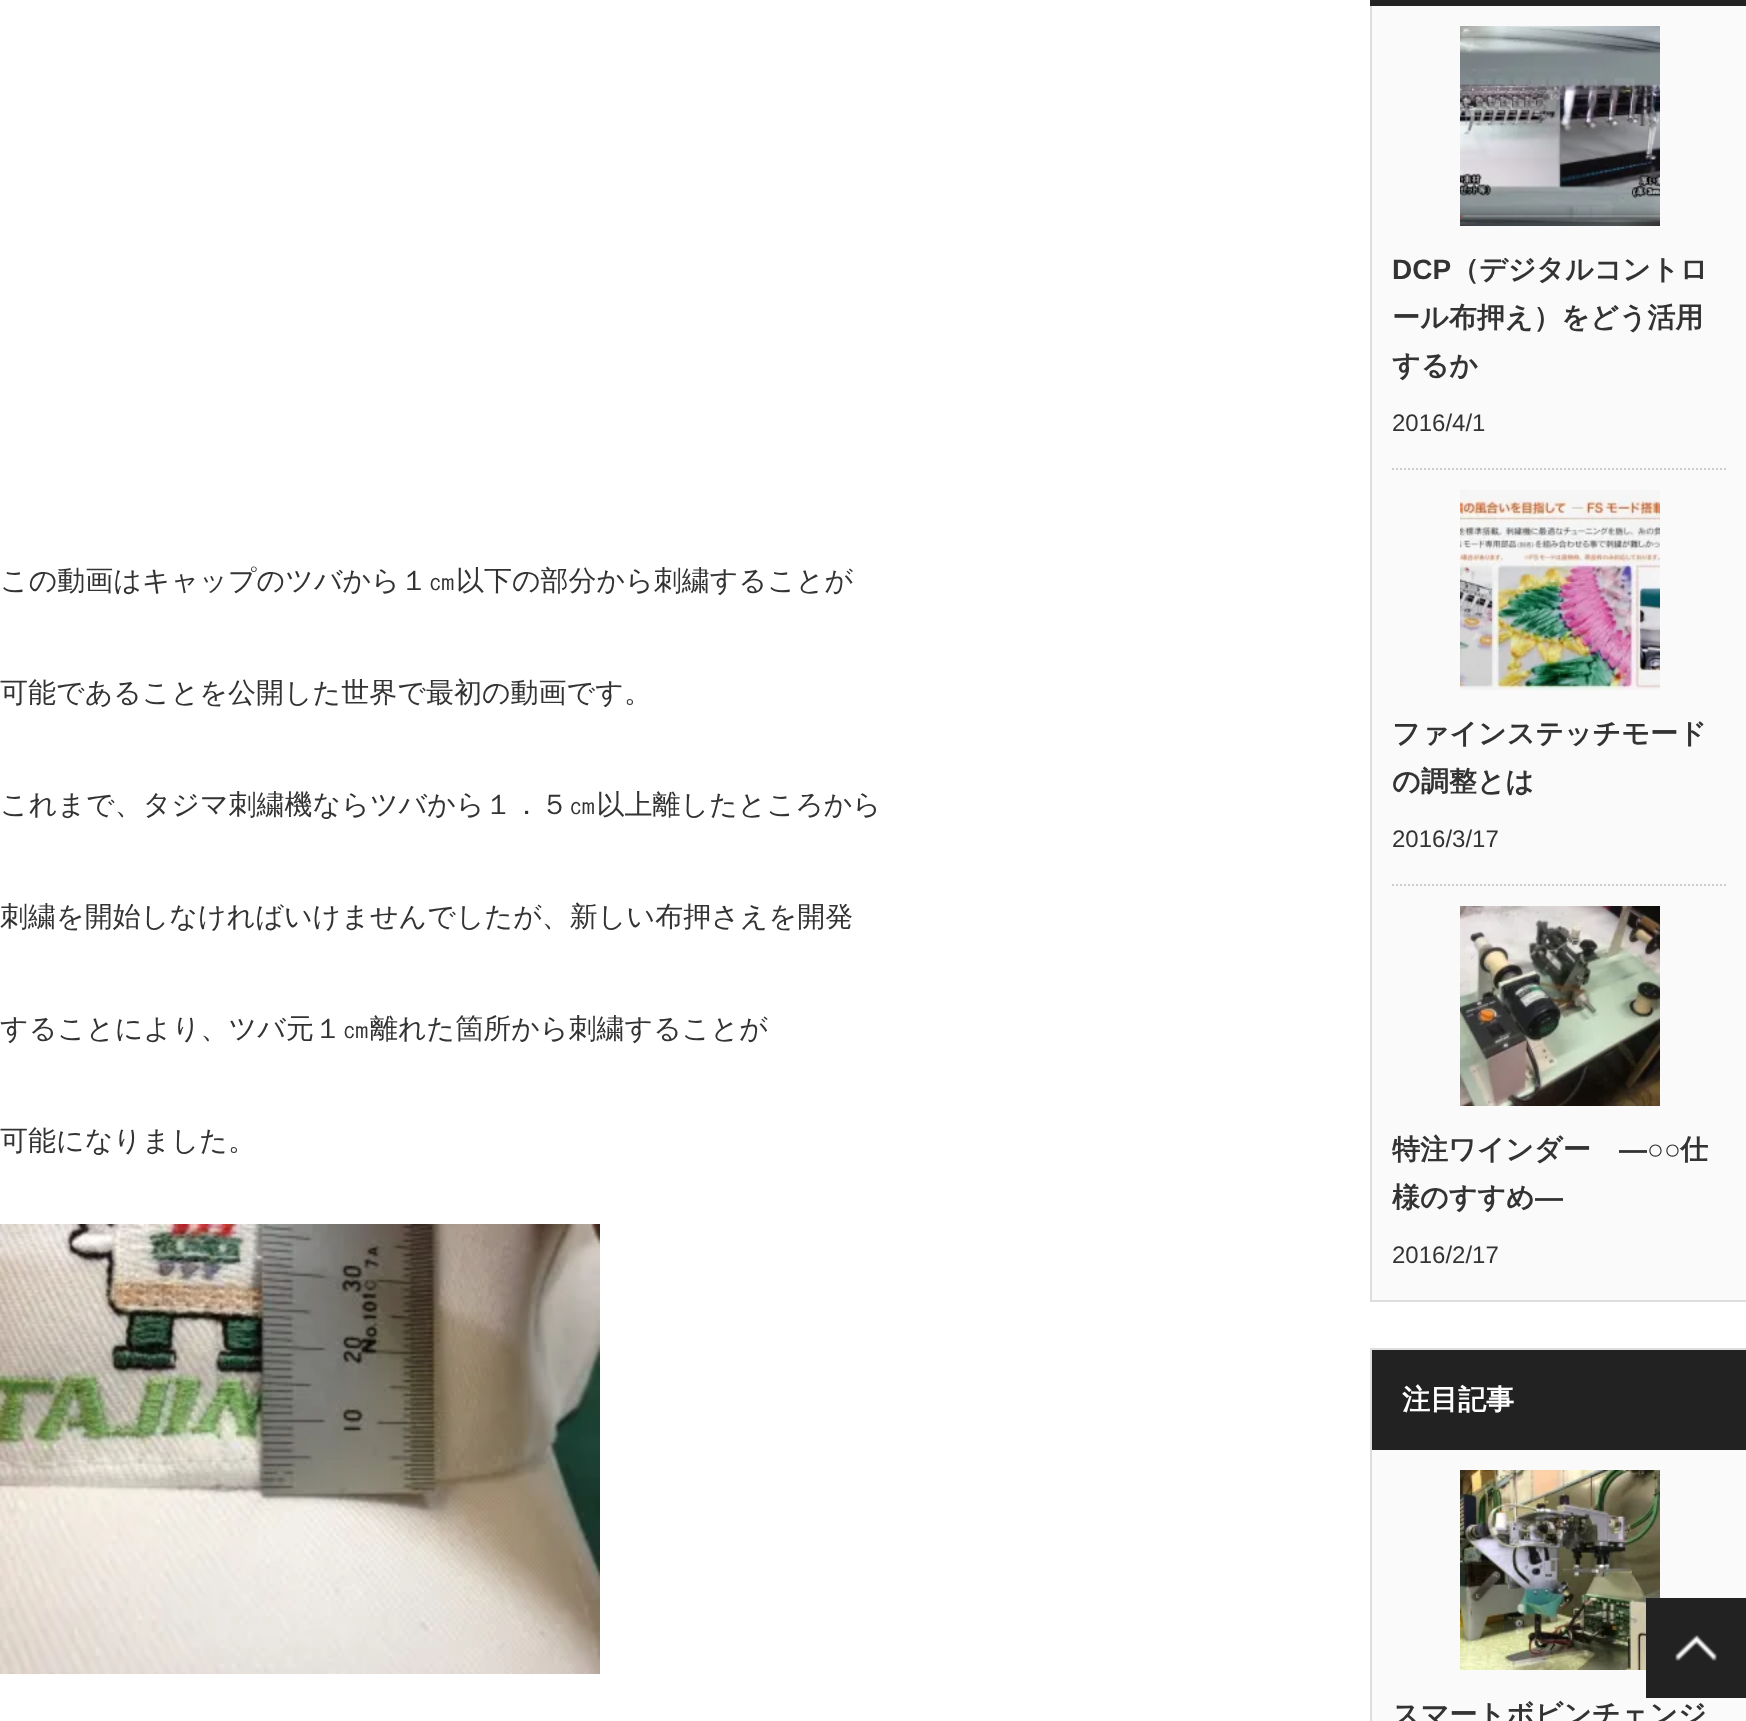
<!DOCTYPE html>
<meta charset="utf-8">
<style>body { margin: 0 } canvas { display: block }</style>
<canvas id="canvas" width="1746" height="1721"></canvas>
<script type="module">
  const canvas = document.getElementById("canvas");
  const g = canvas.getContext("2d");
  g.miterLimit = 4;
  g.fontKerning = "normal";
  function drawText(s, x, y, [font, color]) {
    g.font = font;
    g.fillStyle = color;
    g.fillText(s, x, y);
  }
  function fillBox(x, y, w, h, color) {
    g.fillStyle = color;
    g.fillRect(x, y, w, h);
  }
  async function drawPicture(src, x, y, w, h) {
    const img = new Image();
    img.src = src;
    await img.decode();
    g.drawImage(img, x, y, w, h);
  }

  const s1 = ["500 28px WenQuanYi Zen Hei", "#333333"];
  const s2 = ["bold 28px Liberation Sans", "#333333"];
  const s3 = ["bold 28px WenQuanYi Zen Hei", "#333333"];
  const s4 = ["24px Liberation Sans", "#333333"];
  const s5 = ["bold 28px WenQuanYi Zen Hei", "#FFFFFF"];

  fillBox(0, 0, 1746, 1721, "#FFFFFF");
  drawText("この動画はキャップのツバから１㎝以下の部分から刺繍することが", 0, 590, s1);
  drawText("可能であることを公開した世界で最初の動画です。", 0, 702, s1);
  drawText("これまで、タジマ刺繍機ならツバから１．５㎝以上離したところから", 0, 814, s1);
  drawText("刺繍を開始しなければいけませんでしたが、新しい布押さえを開発", 0, 926, s1);
  drawText("することにより、ツバ元１㎝離れた箇所から刺繍することが", 0, 1038, s1);
  drawText("可能になりました。", 0, 1150, s1);
  await drawPicture("pic1.png", 0, 1224, 600, 450);
  fillBox(1372, 6, 374, 1294, "#FAFAFA");
  g.strokeStyle = "#DDDDDD";
  g.lineWidth = 2;
  g.strokeRect(1371, -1, 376, 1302);
  fillBox(1370, 0, 376, 6, "#222222");
  g.beginPath();
  g.moveTo(1392, 469);
  g.lineTo(1728, 469);
  g.strokeStyle = "#CCCCCC";
  g.setLineDash([2, 2]);
  g.stroke();
  await drawPicture("pic2.png", 1460, 26, 200, 200);
  drawText("DCP", 1392, 279, s2);
  drawText("（デジタルコントロ", 1451, 279, s3);
  drawText("ール布押え）をどう活用", 1392, 327, s3);
  drawText("するか", 1392, 375, s3);
  drawText("2016/4/1", 1392, 431, s4);
  g.beginPath();
  g.moveTo(1392, 885);
  g.lineTo(1728, 885);
  g.stroke();
  await drawPicture("pic3.png", 1460, 490, 200, 200);
  drawText("ファインステッチモード", 1392, 743, s3);
  drawText("の調整とは", 1392, 791, s3);
  drawText("2016/3/17", 1392, 847, s4);
  await drawPicture("pic4.png", 1460, 906, 200, 200);
  drawText("特注ワインダー", 1392, 1159, s3);
  drawText("―○○", 1619, 1159, s2);
  drawText("仕", 1680, 1159, s3);
  drawText("様のすすめ", 1392, 1207, s3);
  drawText("―", 1535, 1207, s2);
  drawText("2016/2/17", 1392, 1263, s4);
  fillBox(1372, 1450, 374, 271, "#FAFAFA");
  g.strokeStyle = "#DDDDDD";
  g.setLineDash([]);
  g.strokeRect(1371, 1349, 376, 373);
  fillBox(1372, 1350, 374, 100, "#222222");
  drawText("注目記事", 1402, 1409, s5);
  await drawPicture("pic5.png", 1460, 1470, 200, 200);
  drawText("スマートボビンチェンジ", 1392, 1724, s3);
  fillBox(1646, 1598, 100, 100, "#222222");
  await drawPicture("pic6.png", 1675, 1635, 42, 26);
</script>
